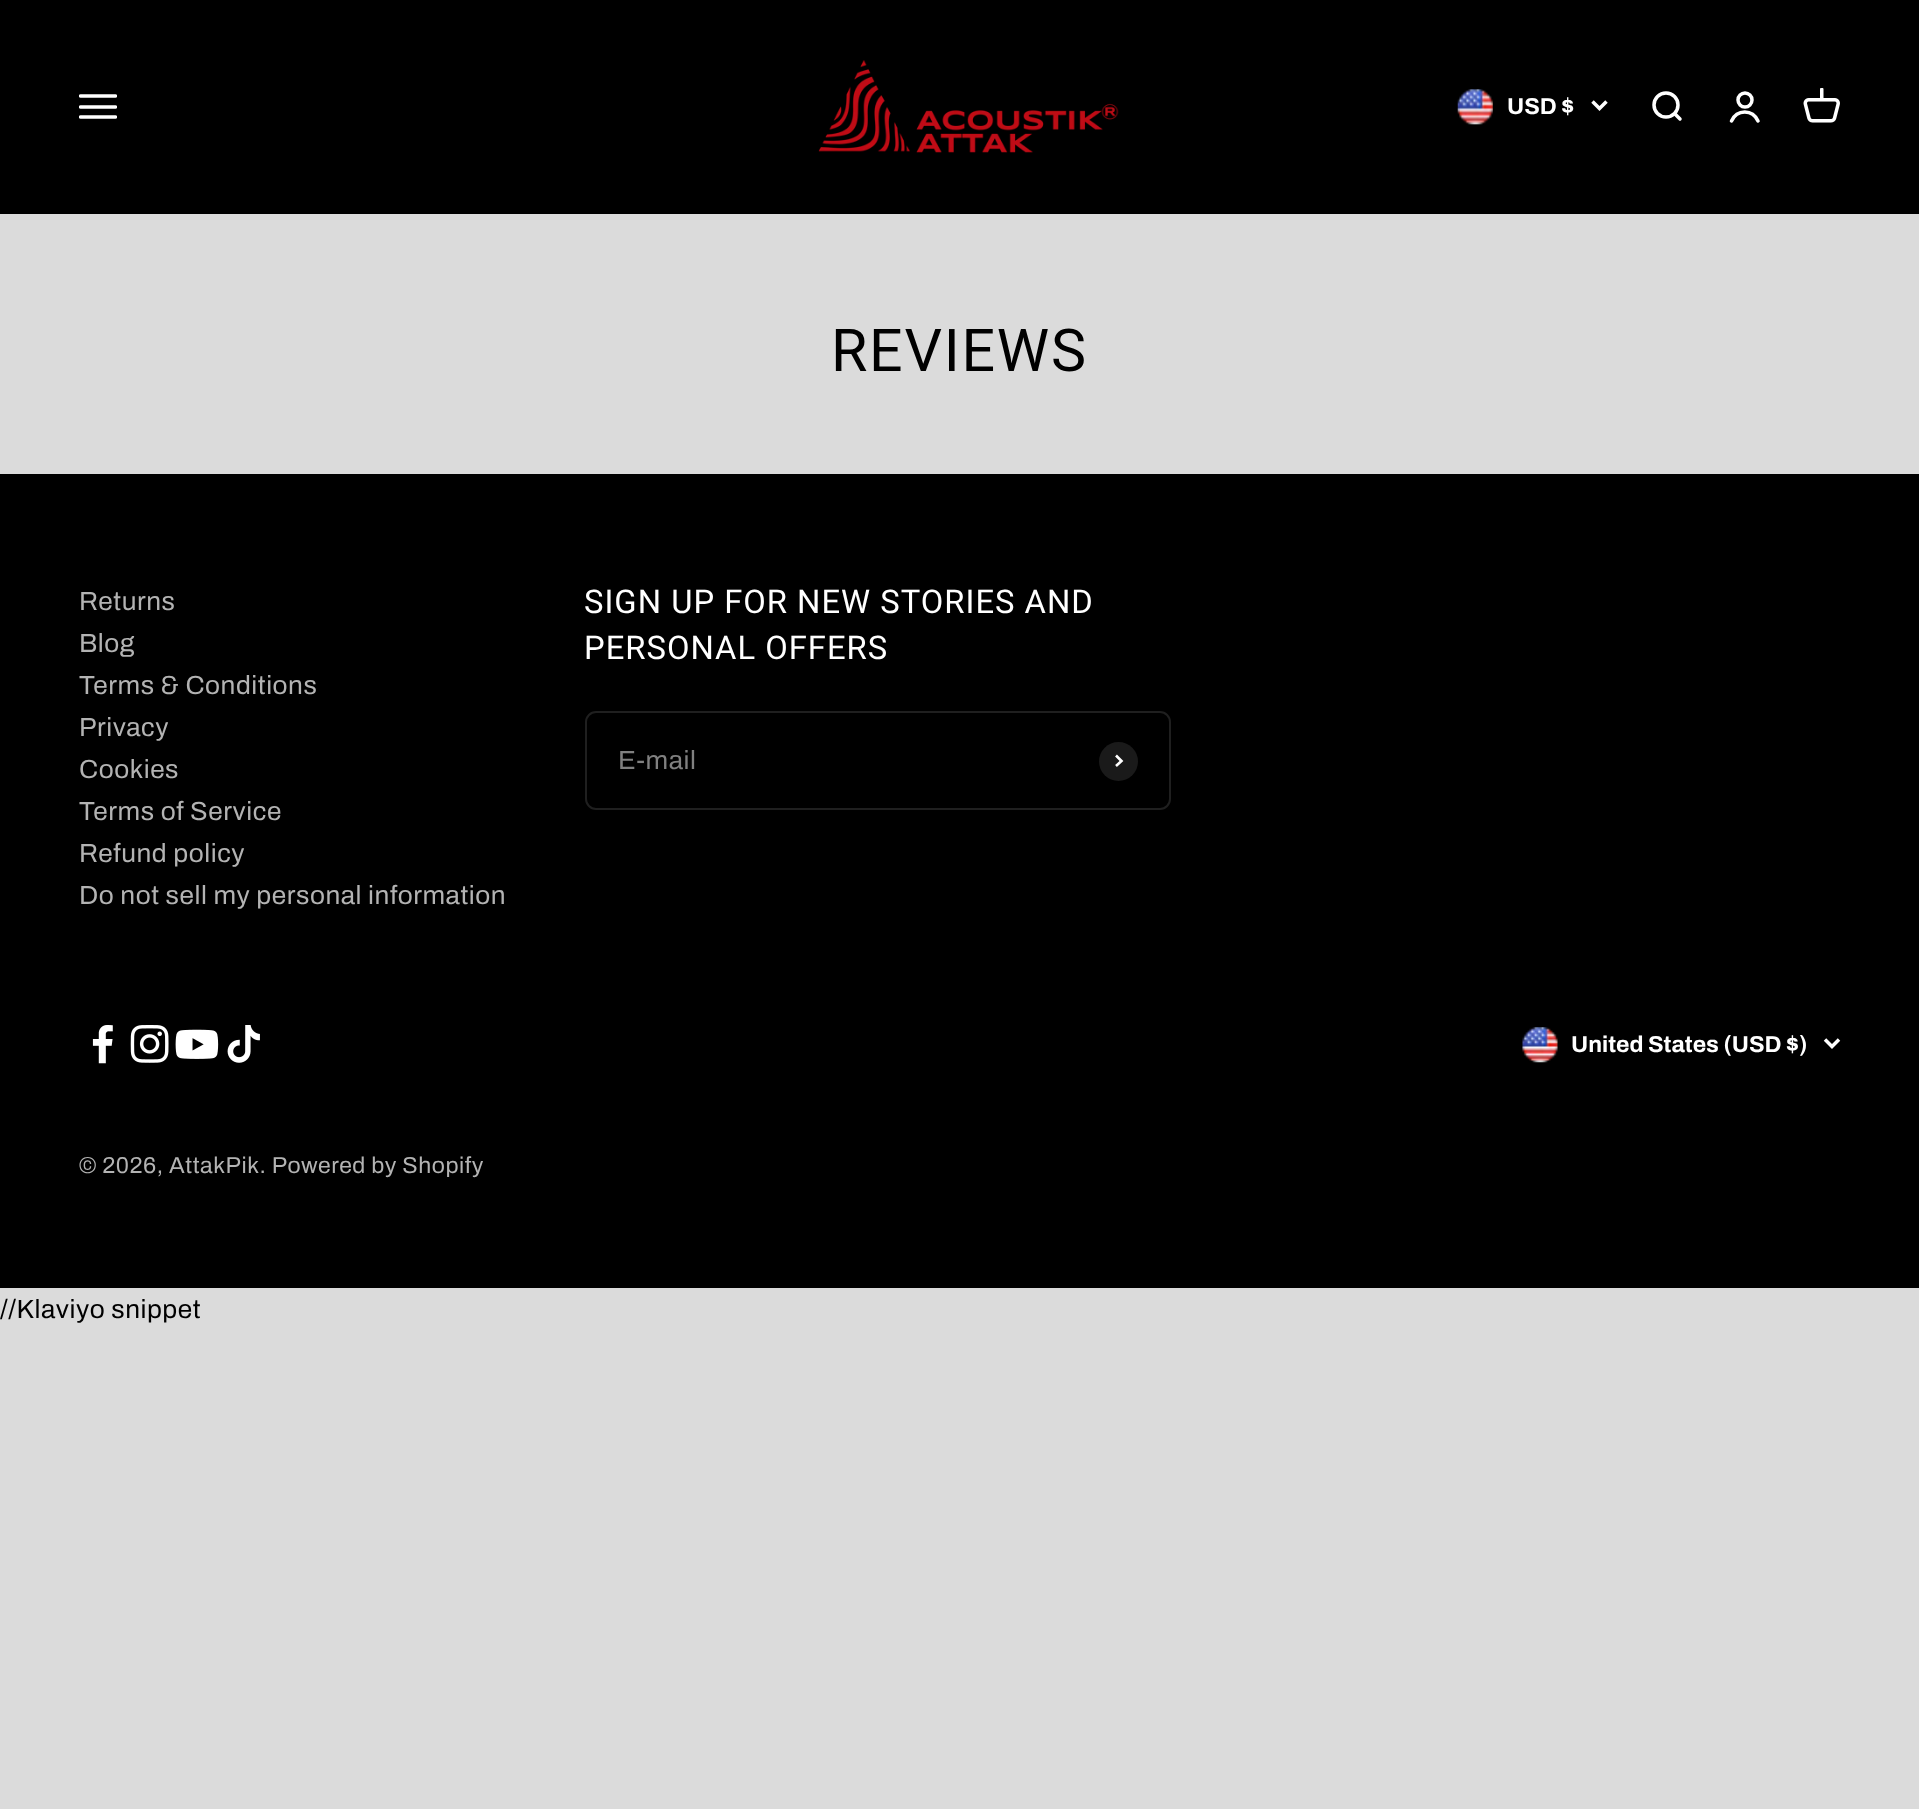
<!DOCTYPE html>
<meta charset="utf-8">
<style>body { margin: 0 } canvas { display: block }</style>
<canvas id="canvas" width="1919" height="1809"></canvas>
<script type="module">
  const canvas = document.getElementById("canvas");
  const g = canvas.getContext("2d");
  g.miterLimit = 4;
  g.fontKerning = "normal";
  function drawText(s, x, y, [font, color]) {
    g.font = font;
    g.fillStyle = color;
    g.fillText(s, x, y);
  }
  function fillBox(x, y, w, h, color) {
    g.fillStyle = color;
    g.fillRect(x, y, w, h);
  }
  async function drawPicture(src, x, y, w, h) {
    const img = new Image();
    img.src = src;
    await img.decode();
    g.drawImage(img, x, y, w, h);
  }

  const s1 = ["bold 23px Archivo", "#FFFFFF"];
  const s2 = ["59px Roboto", "#000000"];
  const s3 = ["26.25px Archivo", "#B3B3B3"];
  const s4 = ["32.75px Roboto", "#FFFFFF"];
  const s5 = ["26.25px Archivo", "#808080"];
  const s6 = ["23px Archivo", "#B3B3B3"];
  const s7 = ["26.25px Archivo", "#000000"];

  fillBox(0, 0, 1919, 1809, "#DBDBDB");
  fillBox(0, 0, 1919, 214, "#000000");
  g.save();
  g.beginPath();
  g.rect(79, 88, 38, 38);
  g.clip();
  g.beginPath();
  g.moveTo(80.5, 96);
  g.lineTo(115.5, 96);
  g.moveTo(80.5, 107);
  g.lineTo(115.5, 107);
  g.moveTo(80.5, 117);
  g.lineTo(115.5, 117);
  g.strokeStyle = "#FFFFFF";
  g.lineWidth = 3.5;
  g.lineCap = "round";
  g.stroke();
  g.restore();
  await drawPicture("pic1.png", 818, 60, 301, 93);
  await drawPicture("pic2.png", 1457, 89, 36, 36);
  drawText("USD $", 1507, 114, s1);
  g.beginPath();
  g.moveTo(1592.5, 101.5);
  g.lineTo(1599.5, 108.5);
  g.lineTo(1606.5, 101.5);
  g.strokeStyle = "#FFFFFF";
  g.lineWidth = 3.5;
  g.stroke();
  g.beginPath();
  g.arc(1666, 105, 12, 0, Math.PI * 2);
  g.stroke();
  g.beginPath();
  g.moveTo(1675, 114);
  g.lineTo(1680, 119);
  g.lineCap = "round";
  g.lineJoin = "round";
  g.stroke();
  g.beginPath();
  g.arc(1745, 100, 7, 0, Math.PI * 2);
  g.stroke();
  g.beginPath();
  g.moveTo(1731.5, 121);
  g.bezierCurveTo(1737, 109, 1752.5, 109, 1758, 121);
  g.lineJoin = "miter";
  g.stroke();
  await drawPicture("pic3.png", 1803, 88, 37, 35);
  g.letterSpacing = "1.75px";
  drawText("REVIEWS", 831, 371, s2);
  fillBox(0, 474, 1919, 814, "#000000");
  g.letterSpacing = "0.55px";
  drawText("Returns", 79, 610, s3);
  drawText("Blog", 79, 652, s3);
  drawText("Terms & Conditions", 79, 694, s3);
  drawText("Privacy", 79, 736, s3);
  drawText("Cookies", 79, 778, s3);
  drawText("Terms of Service", 79, 820, s3);
  drawText("Refund policy", 79, 862, s3);
  drawText("Do not sell my personal information", 79, 904, s3);
  g.letterSpacing = "1px";
  drawText("SIGN UP FOR NEW STORIES AND", 584, 613, s4);
  drawText("PERSONAL OFFERS", 584, 659, s4);
  g.beginPath();
  g.roundRect(586, 712, 584, 97, 10);
  g.strokeStyle = "#1F1F1F";
  g.lineWidth = 2;
  g.stroke();
  g.letterSpacing = "0.55px";
  drawText("E-mail", 618, 769, s5);
  g.fillStyle = "#1A1A1A";
  g.beginPath();
  g.arc(1118.5, 761.5, 19.5, 0, Math.PI * 2);
  g.fill();
  g.beginPath();
  g.moveTo(1116, 766);
  g.lineTo(1121.5, 761);
  g.lineTo(1116, 755.5);
  g.strokeStyle = "#FFFFFF";
  g.lineWidth = 2.6;
  g.lineCap = "butt";
  g.stroke();
  await drawPicture("pic4.png", 92, 1025, 21, 39);
  await drawPicture("pic5.png", 130, 1025, 39, 38);
  await drawPicture("pic6.png", 175, 1029, 44, 30);
  await drawPicture("pic7.png", 227, 1025, 33, 38);
  await drawPicture("pic8.png", 1522, 1027, 36, 36);
  g.letterSpacing = "0px";
  drawText("United States (USD $)", 1571, 1052, s1);
  g.beginPath();
  g.moveTo(1825, 1039.5);
  g.lineTo(1832, 1046.5);
  g.lineTo(1839, 1039.5);
  g.lineWidth = 3.5;
  g.stroke();
  g.letterSpacing = "0.55px";
  drawText("© 2026, AttakPik. Powered by Shopify", 79, 1173, s6);
  drawText("//Klaviyo snippet", 0, 1318, s7);
</script>
